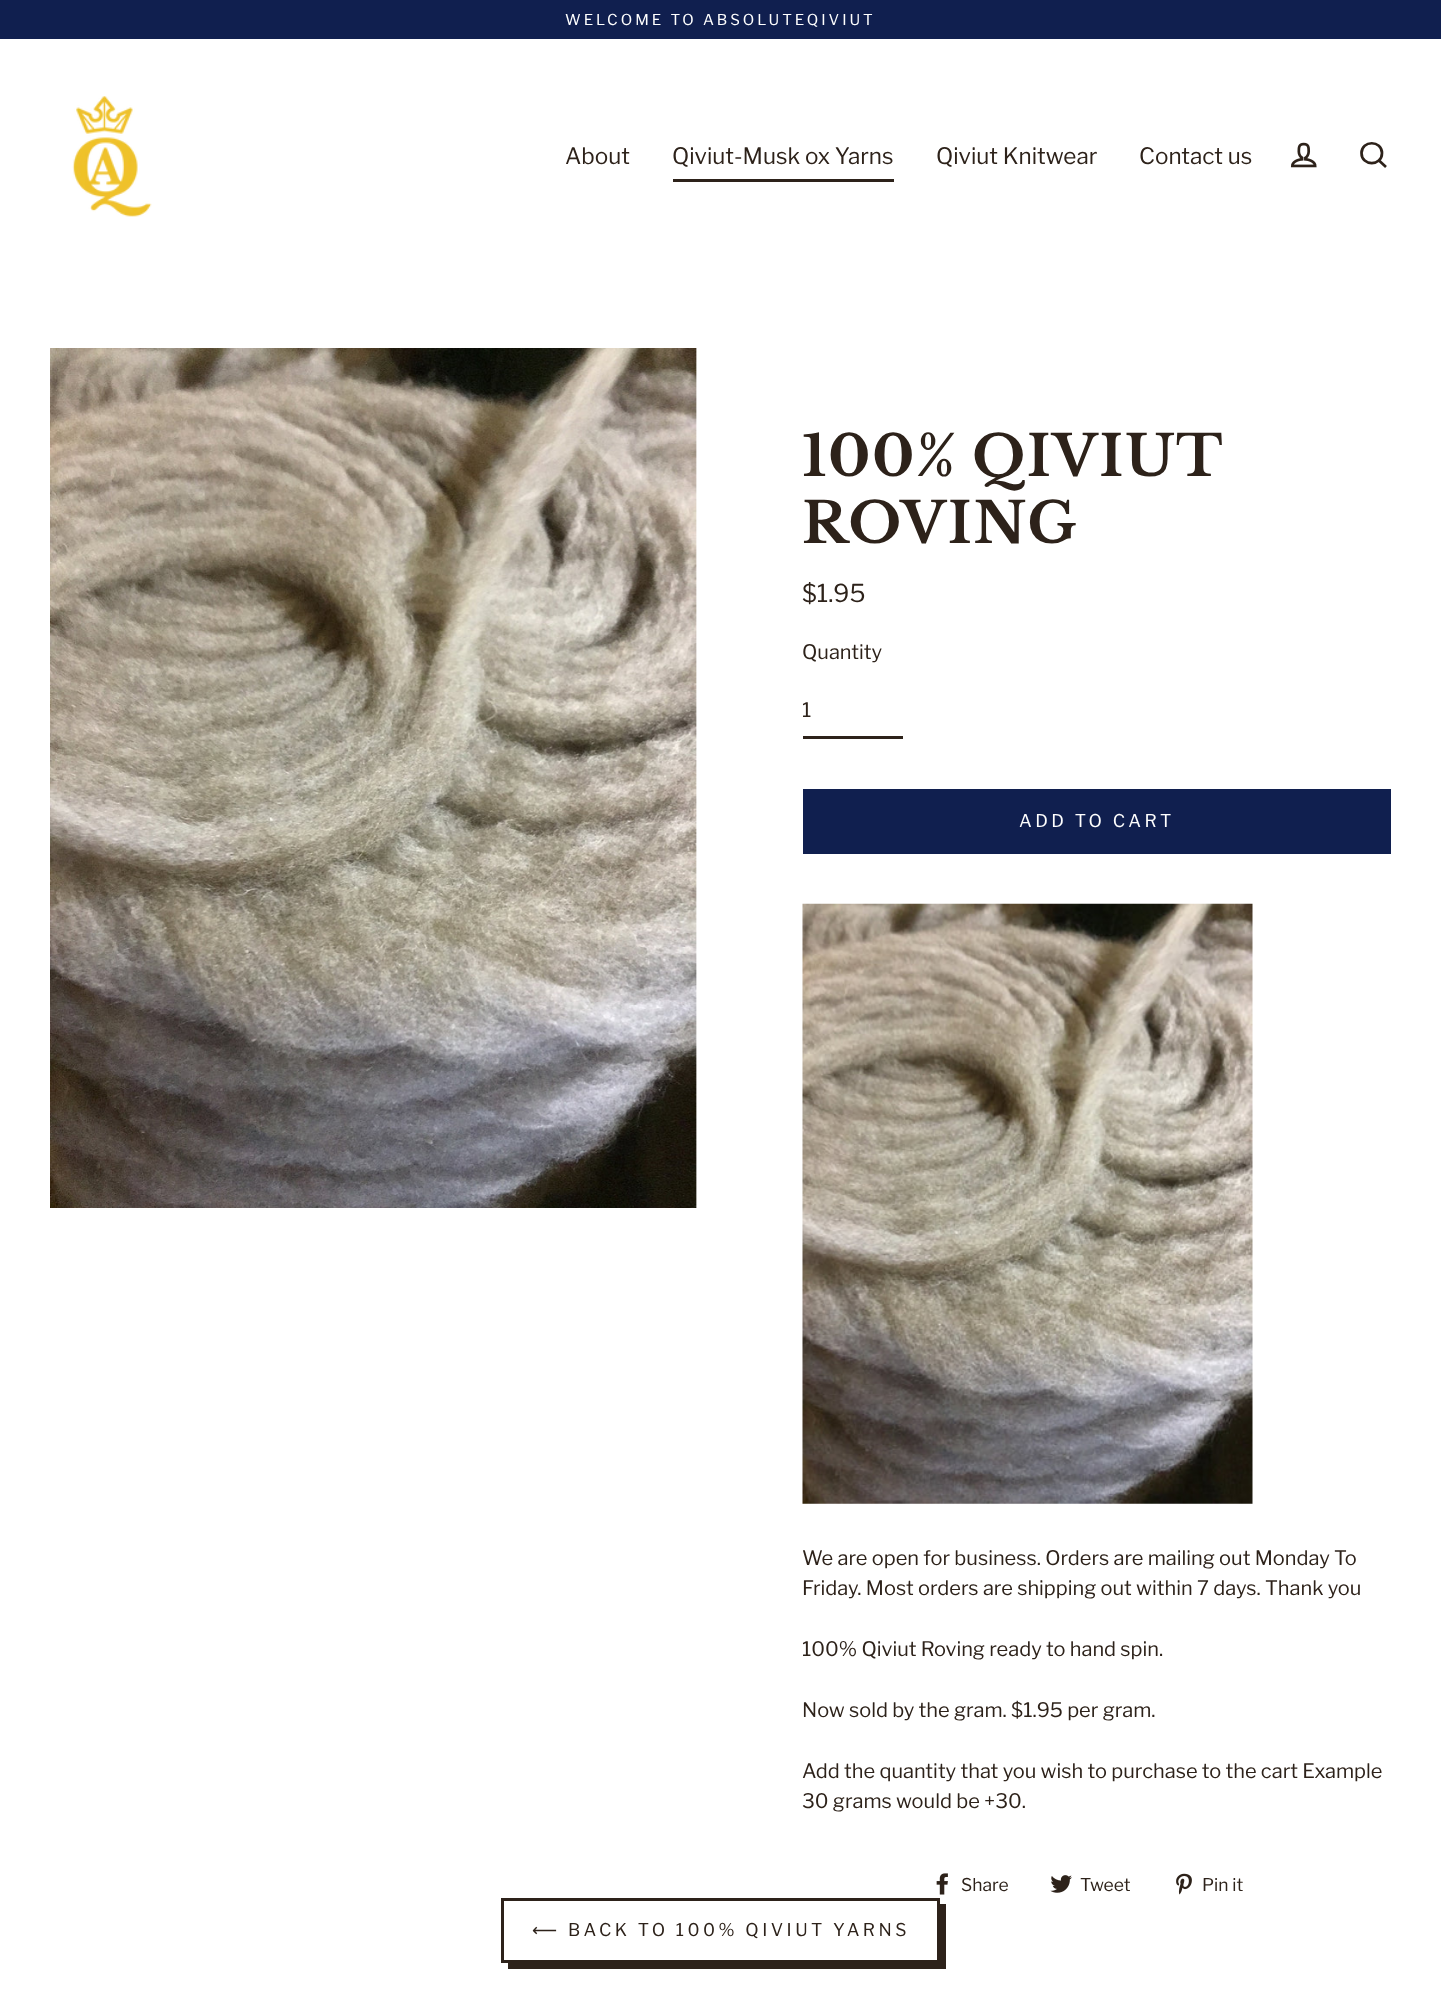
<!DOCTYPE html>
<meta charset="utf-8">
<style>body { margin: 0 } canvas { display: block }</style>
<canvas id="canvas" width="1441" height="1991"></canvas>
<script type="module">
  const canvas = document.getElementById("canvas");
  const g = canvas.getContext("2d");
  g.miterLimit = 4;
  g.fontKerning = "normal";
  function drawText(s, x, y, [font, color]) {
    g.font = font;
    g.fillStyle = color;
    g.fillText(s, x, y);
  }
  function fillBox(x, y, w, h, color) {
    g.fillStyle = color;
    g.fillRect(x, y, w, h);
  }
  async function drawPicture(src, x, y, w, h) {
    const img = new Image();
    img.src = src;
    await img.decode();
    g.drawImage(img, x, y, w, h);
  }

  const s1 = ["15px Libre Franklin", "#FFFFFF"];
  const s2 = ["22.5px Libre Franklin", "#2D221A"];
  const s3 = ["bold 56.25px Libre Baskerville", "#2D221A"];
  const s4 = ["24.5px Libre Franklin", "#2D221A"];
  const s5 = ["20px Libre Franklin", "#2D221A"];
  const s6 = ["17.5px Libre Franklin", "#FFFFFF"];
  const s7 = ["17.5px Libre Franklin", "#2D221A"];
  const s8 = ["17.5px DejaVu Sans", "#2D221A"];

  fillBox(0, 0, 1441, 1991, "#FFFFFF");
  fillBox(0, 0, 1441, 39, "#101F4F");
  g.letterSpacing = "3px";
  drawText("WELCOME TO ABSOLUTEQIVIUT", 565, 25, s1);
  await drawPicture("pic1.png", 72, 96, 80, 121);
  g.letterSpacing = "0px";
  drawText("About", 565, 164, s2);
  drawText("Qiviut-Musk ox Yarns", 672, 164, s2);
  fillBox(673, 179, 221, 3, "#2D221A");
  drawText("Qiviut Knitwear", 936, 164, s2);
  drawText("Contact us", 1139, 164, s2);
  await drawPicture("pic2.png", 1290, 142, 27, 26);
  g.beginPath();
  g.moveTo(1382, 153);
  g.bezierCurveTo(1382, 166.5, 1361.5, 166.5, 1361.5, 153);
  g.bezierCurveTo(1361.5, 140, 1382, 140, 1382, 153);
  g.closePath();
  g.moveTo(1386, 167);
  g.lineTo(1379, 160.5);
  g.strokeStyle = "#2D221A";
  g.lineWidth = 2.7;
  g.stroke();
  await drawPicture("pic3.png", 50, 348, 647, 860);
  g.letterSpacing = "1.5px";
  g.wordSpacing = "-2px";
  drawText("100% QIVIUT", 802, 476, s3);
  g.wordSpacing = "0px";
  drawText("ROVING", 802, 543, s3);
  g.letterSpacing = "0px";
  drawText("$1.95", 802, 602, s4);
  drawText("Quantity", 802, 659, s5);
  fillBox(803, 736, 100, 3, "#2D221A");
  drawText("1", 802, 717, s5);
  fillBox(803, 789, 588, 65, "#101F4F");
  g.letterSpacing = "3.5px";
  drawText("ADD TO CART", 1019, 827, s6);
  await drawPicture("pic4.png", 802, 903, 451, 601);
  g.letterSpacing = "0px";
  drawText("We are open for business. Orders are mailing out Monday To", 802, 1565, s5);
  drawText("Friday. Most orders are shipping out within 7 days. Thank you", 802, 1595, s5);
  drawText("100% Qiviut Roving ready to hand spin.", 802, 1656, s5);
  drawText("Now sold by the gram. $1.95 per gram.", 802, 1717, s5);
  drawText("Add the quantity that you wish to purchase to the cart Example", 802, 1778, s5);
  drawText("30 grams would be +30.", 802, 1808, s5);
  await drawPicture("pic5.png", 936, 1873, 12, 22);
  drawText("Share", 961, 1891, s7);
  await drawPicture("pic6.png", 1050, 1875, 22, 18);
  drawText("Tweet", 1080, 1891, s7);
  await drawPicture("pic7.png", 1176, 1873, 16, 22);
  drawText("Pin it", 1202, 1891, s7);
  g.beginPath();
  g.moveTo(508, 1962);
  g.lineTo(508, 1969);
  g.lineTo(946, 1969);
  g.lineTo(946, 1904);
  g.lineTo(940, 1904);
  g.lineTo(940, 1962);
  g.closePath();
  g.fill();
  g.lineWidth = 3;
  g.strokeRect(502.5, 1899.5, 436, 62);
  g.letterSpacing = "3.5px";
  drawText("⟵", 532, 1936, s8);
  drawText("BACK TO 100% QIVIUT YARNS", 568, 1936, s7);
</script>
